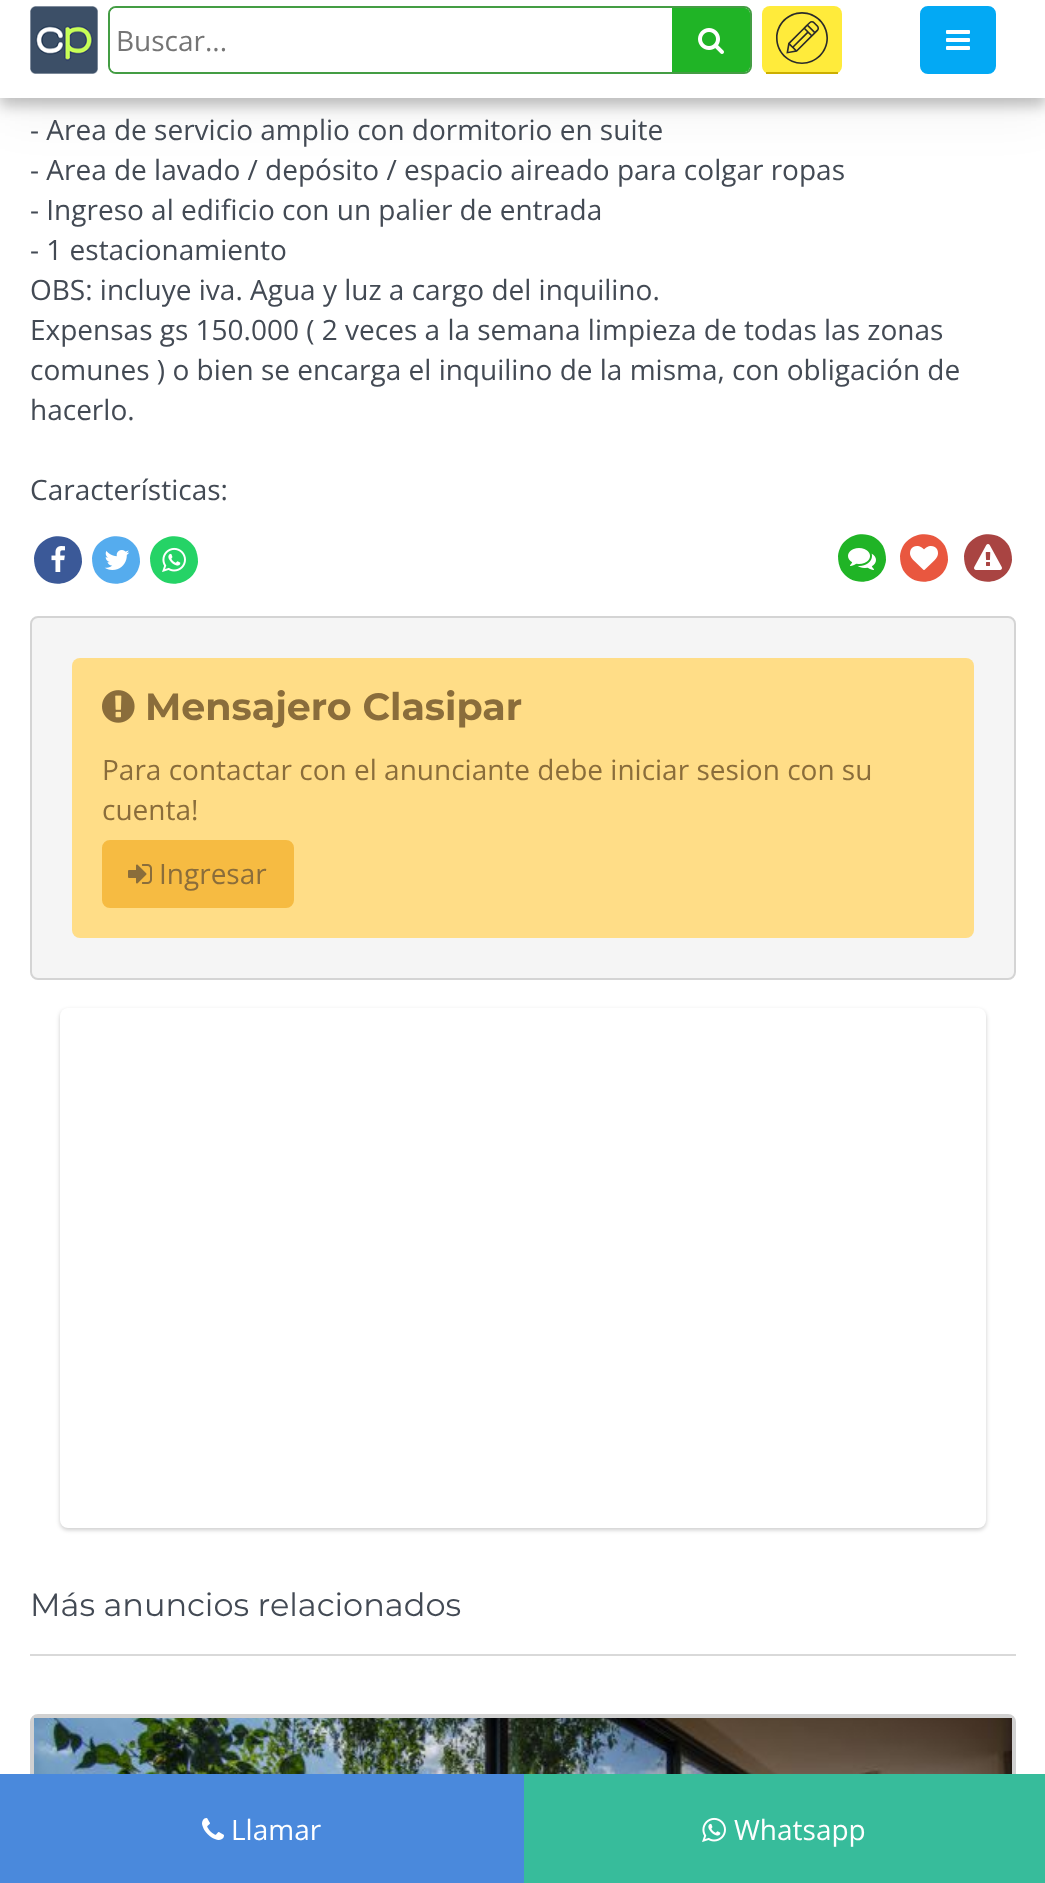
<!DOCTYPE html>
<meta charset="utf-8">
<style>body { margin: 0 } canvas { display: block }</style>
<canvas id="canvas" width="1045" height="1883"></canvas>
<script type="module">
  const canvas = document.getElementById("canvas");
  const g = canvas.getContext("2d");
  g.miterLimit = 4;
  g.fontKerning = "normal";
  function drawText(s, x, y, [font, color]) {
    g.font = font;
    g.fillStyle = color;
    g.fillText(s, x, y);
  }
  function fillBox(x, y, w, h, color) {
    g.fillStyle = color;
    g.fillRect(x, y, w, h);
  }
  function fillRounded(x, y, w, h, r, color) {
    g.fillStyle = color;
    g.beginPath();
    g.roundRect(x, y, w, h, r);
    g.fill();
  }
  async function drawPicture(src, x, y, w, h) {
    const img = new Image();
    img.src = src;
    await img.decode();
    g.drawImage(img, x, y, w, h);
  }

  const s1 = ["28px Open Sans", "#757575"];
  const s2 = ["28px Open Sans", "#434A54"];
  const s3 = ["bold 38px Montserrat", "#8A6D3B"];
  const s4 = ["28px Open Sans", "#8A6D3B"];
  const s5 = ["32px Montserrat", "#434A54"];
  const s6 = ["28px Open Sans", "#FFFFFF"];

  fillBox(0, 0, 1045, 1883, "#FFFFFF");
  g.fillStyle = "rgba(0, 0, 0, 0.05)";
  g.filter = "blur(25px)";
  g.beginPath();
  g.rect(0, 16, 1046, 98);
  g.fill();
  g.filter = "none";
  g.fillStyle = "rgba(0, 0, 0, 0.23)";
  g.filter = "blur(7px)";
  g.beginPath();
  g.rect(0, 8, 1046, 98);
  g.fill();
  g.filter = "none";
  fillBox(0, 0, 1045, 98, "#FFFFFF");
  await drawPicture("pic1.png", 30, 6, 68, 68);
  g.beginPath();
  g.roundRect(109, 7, 642, 66, 7);
  g.strokeStyle = "#449D44";
  g.lineWidth = 2;
  g.stroke();
  fillRounded(110, 8, 640, 64, 6, "#FFFFFF");
  drawText("Buscar...", 116, 51, s1);
  g.fillStyle = "#20B426";
  g.beginPath();
  g.roundRect(672, 8, 78, 64, [0, 6, 6, 0]);
  g.fill();
  g.beginPath();
  g.moveTo(672, 8);
  g.lineTo(672, 72);
  g.lineTo(744, 72);
  g.bezierCurveTo(747, 72, 750, 69, 750, 66);
  g.lineTo(750, 14);
  g.bezierCurveTo(750, 11, 747, 8, 744, 8);
  g.closePath();
  g.moveTo(674, 10);
  g.lineTo(674, 70);
  g.lineTo(748, 70);
  g.lineTo(748, 10);
  g.closePath();
  g.fill("evenodd");
  await drawPicture("pic2.png", 698, 28, 26, 26);
  fillRounded(762, 6, 80, 68, 8, "#FFEB3B");
  fillBox(766, 72, 72, 2, "#CCAE00");
  await drawPicture("pic3.png", 776, 12, 52, 52);
  g.fillStyle = "#03A9F4";
  g.beginPath();
  g.roundRect(921, 7, 74, 66, 7);
  g.fill();
  g.strokeStyle = "#03A9F4";
  g.stroke();
  await drawPicture("pic4.png", 946, 30, 24, 20);
  drawText("- Area de servicio amplio con dormitorio en suite", 30, 140, s2);
  drawText("- Area de lavado / depósito / espacio aireado para colgar ropas", 30, 180, s2);
  drawText("- Ingreso al edificio con un palier de entrada", 30, 220, s2);
  drawText("- 1 estacionamiento", 30, 260, s2);
  drawText("OBS: incluye iva. Agua y luz a cargo del inquilino.", 30, 300, s2);
  drawText("Expensas gs 150.000 ( 2 veces a la semana limpieza de todas las zonas", 30, 340, s2);
  drawText("comunes ) o bien se encarga el inquilino de la misma, con obligación de", 30, 380, s2);
  drawText("hacerlo.", 30, 420, s2);
  drawText("Características:", 30, 500, s2);
  g.fillStyle = "#3B5998";
  g.beginPath();
  g.moveTo(79, 548);
  g.bezierCurveTo(81, 552, 82, 557, 82, 562);
  g.bezierCurveTo(80, 585, 49, 592, 37, 572);
  g.bezierCurveTo(35, 568, 34, 563, 34, 558);
  g.bezierCurveTo(36, 535, 67, 528, 79, 548);
  g.closePath();
  g.fill();
  await drawPicture("pic5.png", 51, 546, 14, 26);
  g.fillStyle = "#55ACEE";
  g.beginPath();
  g.moveTo(137, 548);
  g.bezierCurveTo(139, 552, 140, 557, 140, 562);
  g.bezierCurveTo(138, 585, 107, 592, 95, 572);
  g.bezierCurveTo(93, 568, 92, 563, 92, 558);
  g.bezierCurveTo(94, 535, 125, 528, 137, 548);
  g.closePath();
  g.fill();
  await drawPicture("pic6.png", 104, 550, 26, 20);
  g.fillStyle = "#25D366";
  g.beginPath();
  g.moveTo(195, 548);
  g.bezierCurveTo(197, 552, 198, 557, 198, 562);
  g.bezierCurveTo(196, 585, 165, 592, 153, 572);
  g.bezierCurveTo(151, 568, 150, 563, 150, 558);
  g.bezierCurveTo(152, 535, 183, 528, 195, 548);
  g.closePath();
  g.fill();
  await drawPicture("pic7.png", 162, 547, 24, 25);
  g.fillStyle = "#20B426";
  g.beginPath();
  g.moveTo(883, 546);
  g.bezierCurveTo(885, 550, 886, 555, 886, 560);
  g.bezierCurveTo(884, 583, 853, 590, 841, 570);
  g.bezierCurveTo(839, 566, 838, 561, 838, 556);
  g.bezierCurveTo(840, 533, 871, 526, 883, 546);
  g.closePath();
  g.fill();
  await drawPicture("pic8.png", 848, 548, 28, 22);
  g.fillStyle = "#E9573F";
  g.beginPath();
  g.moveTo(945, 546);
  g.bezierCurveTo(947, 550, 948, 555, 948, 560);
  g.bezierCurveTo(946, 583, 915, 590, 903, 570);
  g.bezierCurveTo(901, 566, 900, 561, 900, 556);
  g.bezierCurveTo(902, 533, 933, 526, 945, 546);
  g.closePath();
  g.fill();
  await drawPicture("pic9.png", 910, 546, 28, 24);
  g.fillStyle = "#A94442";
  g.beginPath();
  g.moveTo(1009, 546);
  g.bezierCurveTo(1011, 550, 1012, 555, 1012, 560);
  g.bezierCurveTo(1010, 583, 979, 590, 967, 570);
  g.bezierCurveTo(965, 566, 964, 561, 964, 556);
  g.bezierCurveTo(966, 533, 997, 526, 1009, 546);
  g.closePath();
  g.fill();
  await drawPicture("pic10.png", 974, 544, 28, 26);
  g.fillStyle = "#F5F5F5";
  g.beginPath();
  g.roundRect(31, 617, 984, 362, 7);
  g.fill();
  g.strokeStyle = "#D4D4D4";
  g.stroke();
  fillRounded(72, 658, 902, 280, 8, "#FFDD87");
  await drawPicture("pic11.png", 102, 690, 33, 33);
  drawText("Mensajero Clasipar", 145, 720, s3);
  drawText("Para contactar con el anunciante debe iniciar sesion con su", 102, 780, s4);
  drawText("cuenta!", 102, 820, s4);
  g.fillStyle = "#F6BB42";
  g.beginPath();
  g.roundRect(103, 841, 190, 66, 7);
  g.fill();
  g.strokeStyle = "#F6BB42";
  g.stroke();
  await drawPicture("pic12.png", 128, 864, 24, 20);
  drawText("Ingresar", 159, 884, s4);
  g.fillStyle = "rgba(0, 0, 0, 0.2)";
  g.filter = "blur(2px)";
  g.beginPath();
  g.roundRect(60, 1010, 926, 520, 8);
  g.fill();
  g.filter = "none";
  fillRounded(60, 1008, 926, 520, 8, "#FFFFFF");
  fillBox(30, 1654, 986, 2, "#D9D9D9");
  drawText("Más anuncios relacionados", 30, 1616, s5);
  g.beginPath();
  g.roundRect(32, 1716, 982, 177, 6);
  g.strokeStyle = "#D1D1D1";
  g.lineWidth = 4;
  g.stroke();
  await drawPicture("pic13.png", 34, 1718, 978, 56);
  fillBox(0, 1774, 524, 109, "#4A89DC");
  await drawPicture("pic14.png", 202, 1818, 22, 22);
  drawText("Llamar", 231, 1840, s6);
  fillBox(524, 1774, 521, 109, "#37BC9B");
  await drawPicture("pic15.png", 702, 1817, 24, 25);
  drawText("Whatsapp", 734, 1840, s6);
</script>
